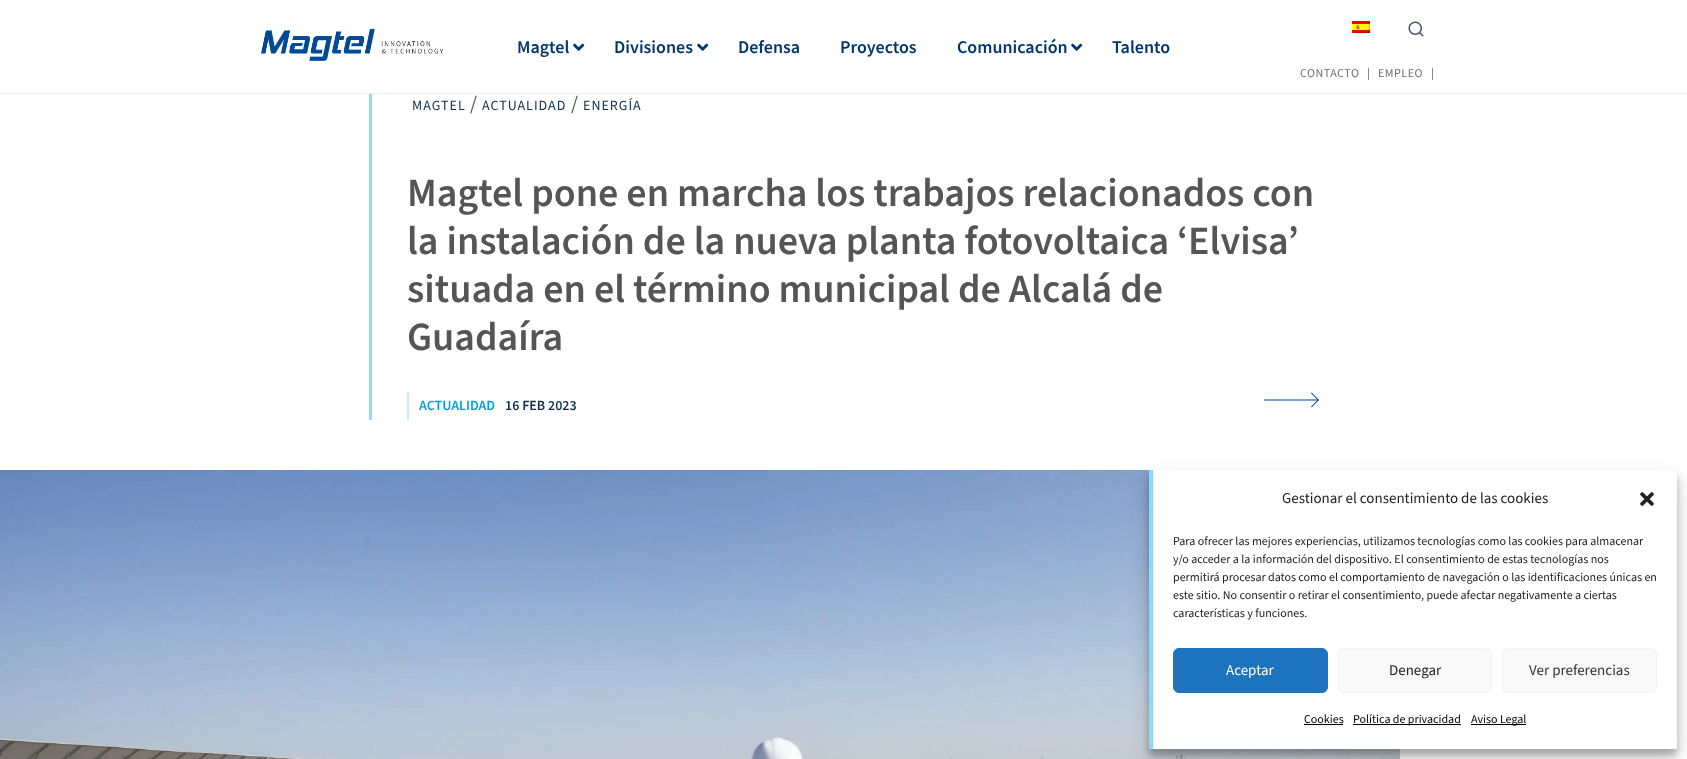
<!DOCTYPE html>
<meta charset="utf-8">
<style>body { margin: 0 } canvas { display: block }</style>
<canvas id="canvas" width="1687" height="759"></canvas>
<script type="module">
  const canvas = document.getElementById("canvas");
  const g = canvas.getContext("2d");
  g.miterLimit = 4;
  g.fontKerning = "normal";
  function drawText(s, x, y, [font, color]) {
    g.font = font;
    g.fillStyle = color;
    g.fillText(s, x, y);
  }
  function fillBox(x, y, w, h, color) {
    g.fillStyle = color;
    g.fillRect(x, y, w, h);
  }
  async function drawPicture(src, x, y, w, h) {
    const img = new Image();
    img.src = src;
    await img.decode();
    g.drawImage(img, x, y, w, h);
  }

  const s1 = ["600 18px Source Sans Pro", "#00366F"];
  const s2 = ["12px Source Sans Pro", "#6F6F6F"];
  const s3 = ["12px 'Source Sans 3'", "#555555"];
  const s4 = ["14px 'Source Sans 3'", "#142E49"];
  const s5 = ["20px 'Source Sans 3'", "#555555"];
  const s6 = ["600 40px 'Source Sans 3'", "#555555"];
  const s7 = ["600 14px 'Source Sans 3'", "#009FE3"];
  const s8 = ["600 14px 'Source Sans 3'", "#142E49"];
  const s9 = ["15px 'Source Sans 3'", "#222222"];
  const s10 = ["12px 'Source Sans 3'", "#222222"];
  const s11 = ["15px 'Source Sans 3'", "#FFFFFF"];
  const s12 = ["15px 'Source Sans 3'", "#333333"];
  const s13 = ["12px 'Source Sans 3'", "#000000"];

  fillBox(0, 0, 1687, 759, "#FFFFFF");
  fillBox(369, 90, 3, 330, "#8ADCFF");
  fillBox(369, 90, 3, 3, "#FFFFFF");
  fillBox(0, 93, 1687, 1, "#EDF2F7");
  await drawPicture("pic1.png", 261, 28, 182, 33);
  drawText("Magtel", 517, 53, s1);
  await drawPicture("pic2.png", 573, 43, 12, 8);
  drawText("Divisiones", 614, 53, s1);
  await drawPicture("pic2.png", 697, 43, 12, 8);
  drawText("Defensa", 738, 53, s1);
  drawText("Proyectos", 840, 53, s1);
  drawText("Comunicación", 957, 53, s1);
  await drawPicture("pic2.png", 1071, 43, 12, 8);
  drawText("Talento", 1112, 53, s1);
  await drawPicture("pic3.png", 1352, 21, 18, 12);
  await drawPicture("pic4.png", 1408, 21, 16, 16);
  g.letterSpacing = "0.5px";
  drawText("CONTACTO", 1300, 77, s2);
  g.letterSpacing = "0px";
  drawText("|", 1367, 77, s3);
  g.letterSpacing = "0.5px";
  drawText("EMPLEO", 1378, 77, s2);
  g.letterSpacing = "0px";
  drawText("|", 1431, 77, s3);
  g.letterSpacing = "1px";
  drawText("MAGTEL", 412, 110, s4);
  g.letterSpacing = "0px";
  drawText("/", 470, 110, s5);
  g.letterSpacing = "1px";
  drawText("ACTUALIDAD", 482, 110, s4);
  g.letterSpacing = "0px";
  drawText("/", 571, 110, s5);
  g.letterSpacing = "1px";
  drawText("ENERGÍA", 583, 110, s4);
  g.letterSpacing = "0px";
  drawText("Magtel pone en marcha los trabajos relacionados con", 407, 206, s6);
  drawText("la instalación de la nueva planta fotovoltaica ‘Elvisa’", 407, 254, s6);
  drawText("situada en el término municipal de Alcalá de", 407, 302, s6);
  drawText("Guadaíra", 407, 350, s6);
  fillBox(407, 392, 2, 28, "#C0ECFF");
  drawText("ACTUALIDAD", 419, 410, s7);
  drawText("16 FEB 2023", 505, 410, s8);
  await drawPicture("pic5.png", 1264, 392, 55, 16);
  await drawPicture("pic6.png", 0, 470, 1400, 289);
  g.fillStyle = "rgba(0, 0, 0, 0.23)";
  g.filter = "blur(3px)";
  g.beginPath();
  g.rect(1149, 476, 528, 279);
  g.fill();
  g.filter = "none";
  g.fillStyle = "rgba(0, 0, 0, 0.19)";
  g.filter = "blur(10px)";
  g.beginPath();
  g.rect(1149, 480, 528, 279);
  g.fill();
  g.filter = "none";
  fillBox(1153, 470, 524, 279, "#FFFFFF");
  fillBox(1149, 470, 4, 279, "#8ADCFF");
  drawText("Gestionar el consentimiento de las cookies", 1282, 503, s9);
  await drawPicture("pic7.png", 1640, 492, 14, 14);
  drawText("Para ofrecer las mejores experiencias, utilizamos tecnologías como las cookies para almacenar", 1173, 545, s10);
  drawText("y/o acceder a la información del dispositivo. El consentimiento de estas tecnologías nos", 1173, 563, s10);
  drawText("permitirá procesar datos como el comportamiento de navegación o las identificaciones únicas en", 1173, 581, s10);
  drawText("este sitio. No consentir o retirar el consentimiento, puede afectar negativamente a ciertas", 1173, 599, s10);
  drawText("características y funciones.", 1173, 617, s10);
  g.fillStyle = "#1E73BE";
  g.beginPath();
  g.roundRect(1173.5, 648.5, 154, 44, 5.5);
  g.fill();
  g.strokeStyle = "#1E73BE";
  g.stroke();
  drawText("Aceptar", 1226, 675, s11);
  g.fillStyle = "#F9F9F9";
  g.beginPath();
  g.roundRect(1338.5, 648.5, 153, 44, 5.5);
  g.fill();
  g.strokeStyle = "#F2F2F2";
  g.stroke();
  drawText("Denegar", 1389, 675, s9);
  g.fillStyle = "#F9F9F9";
  g.beginPath();
  g.roundRect(1502.5, 648.5, 154, 44, 5.5);
  g.fill();
  g.stroke();
  drawText("Ver preferencias", 1529, 675, s12);
  drawText("Cookies", 1304, 723, s13);
  fillBox(1304, 724, 39, 1, "#000000");
  fillBox(1353, 724, 108, 1, "#000000");
  drawText("Política de privacidad", 1353, 723, s13);
  fillBox(1471, 724, 55, 1, "#000000");
  drawText("Aviso Legal", 1471, 723, s13);
</script>
